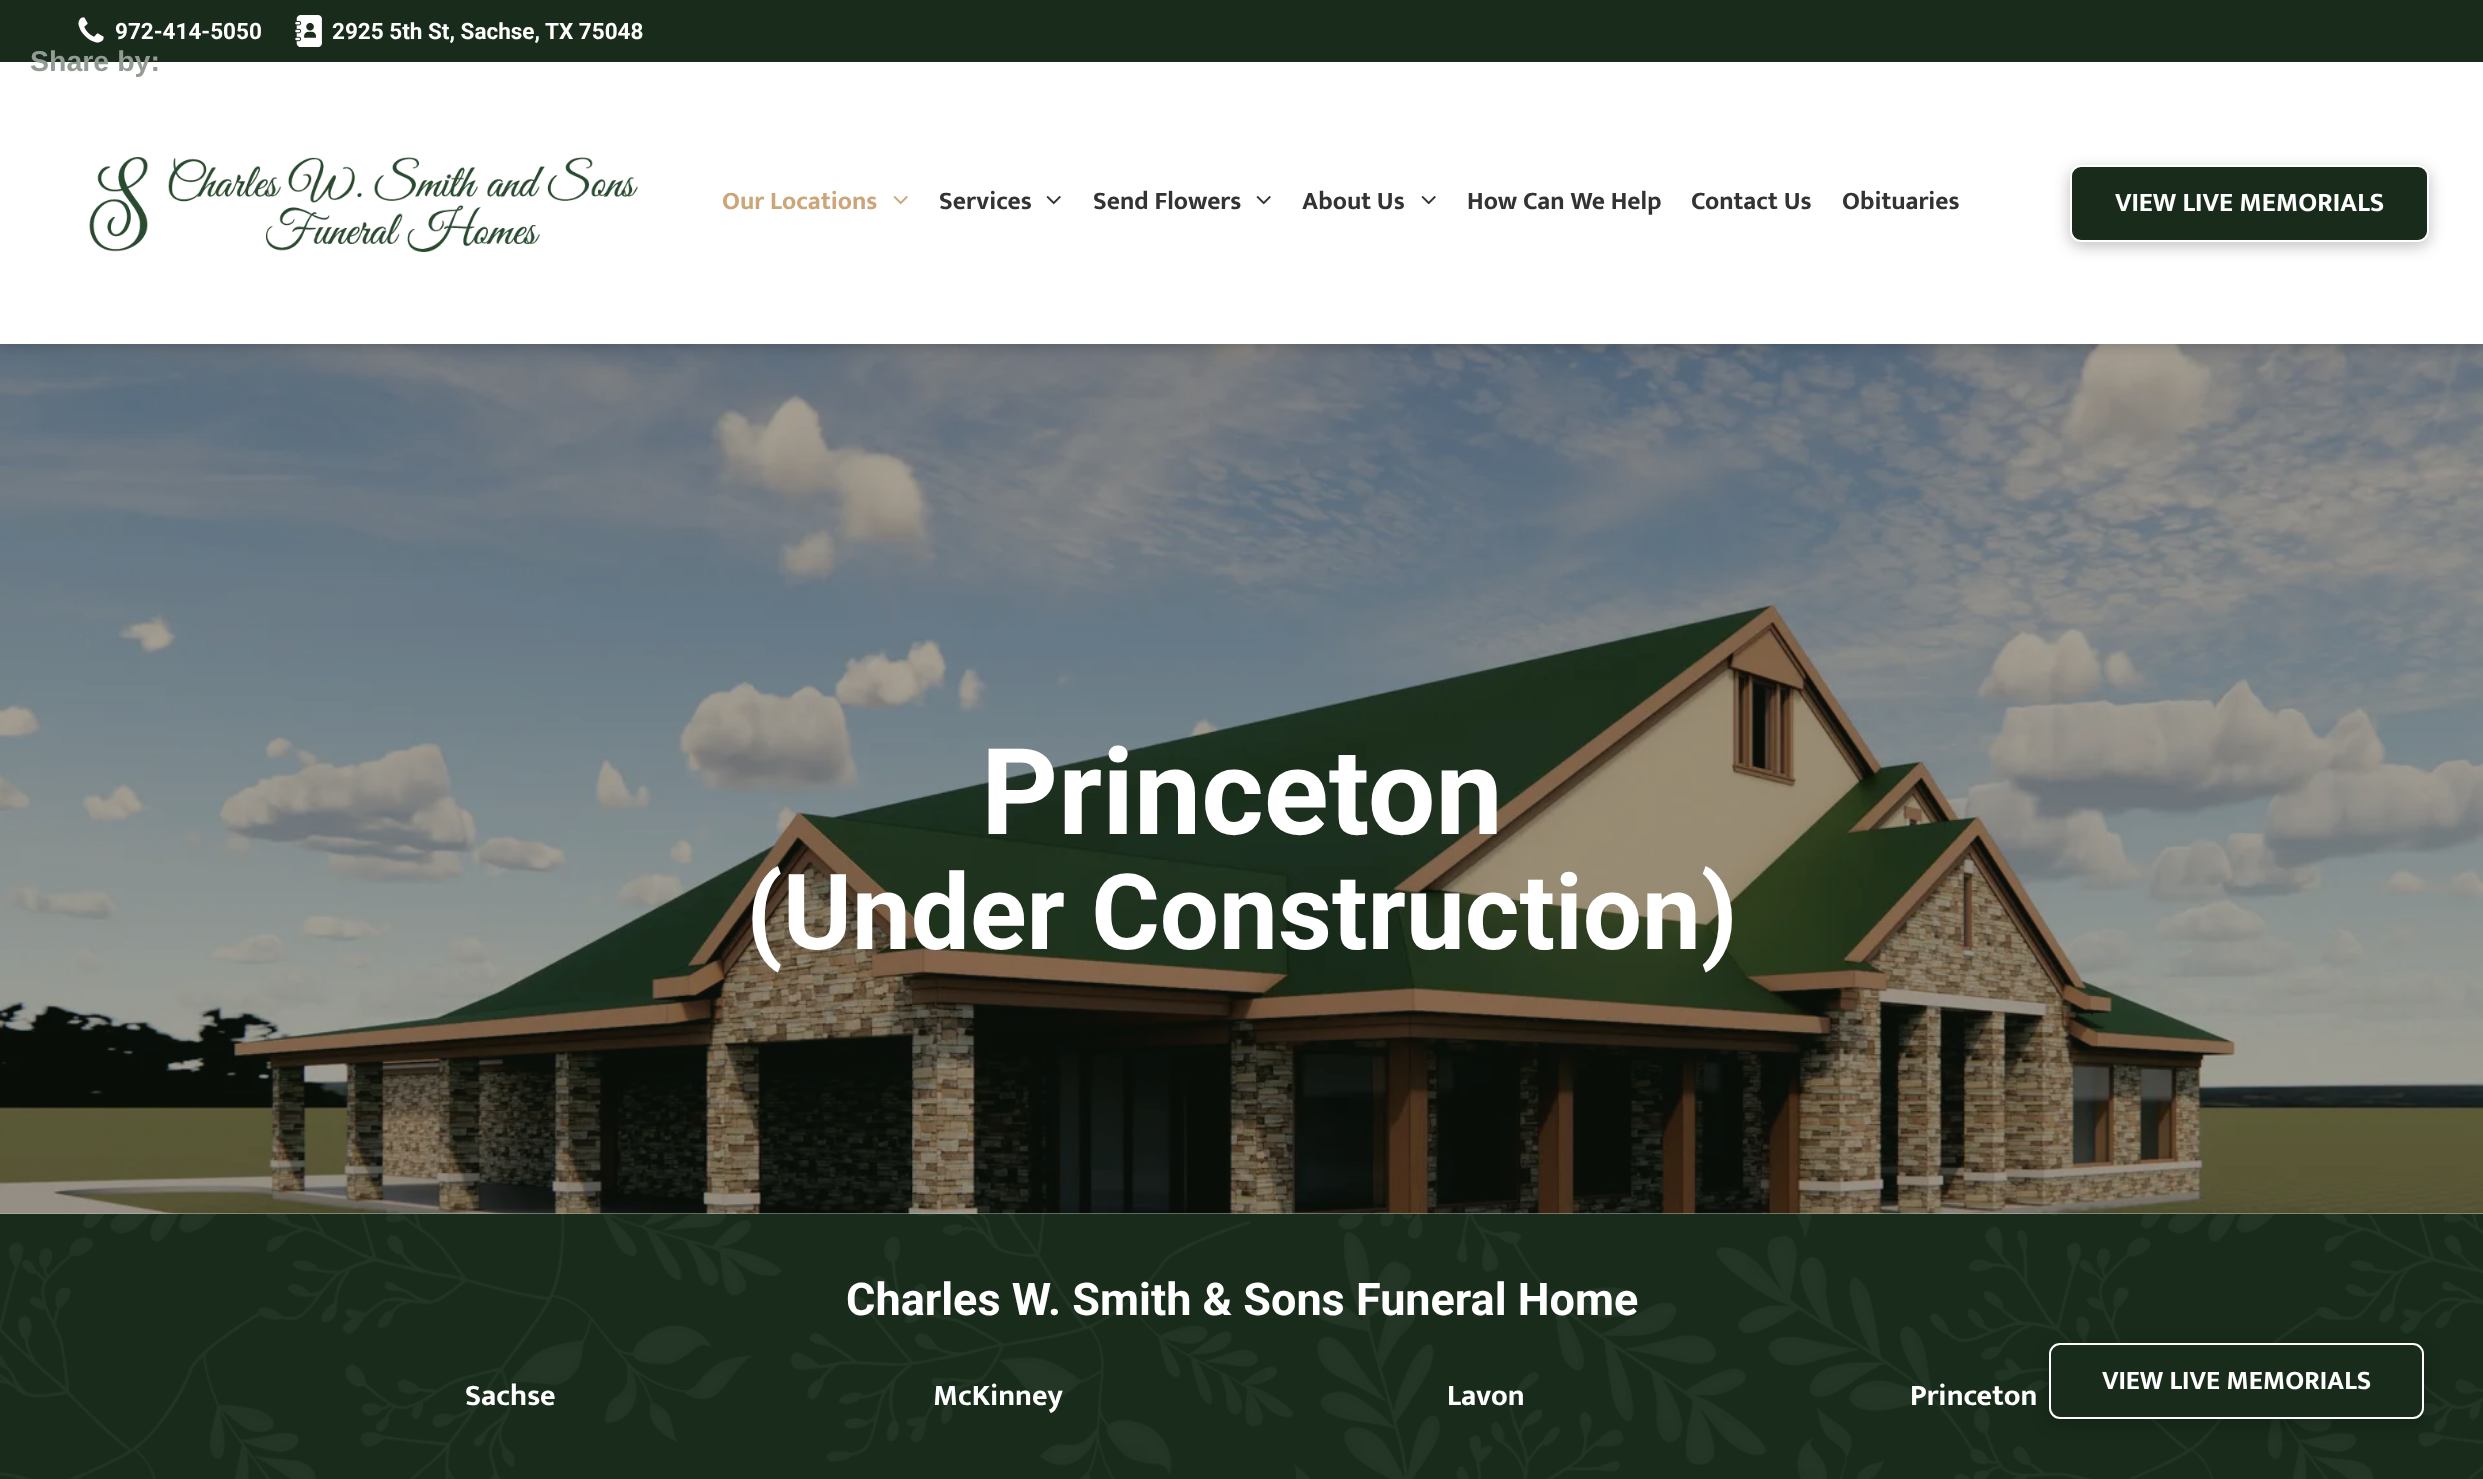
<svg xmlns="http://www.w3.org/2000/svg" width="2483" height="1479">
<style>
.a{font:bold 28.5px Liberation Sans;fill:#939c94}
.b{font:bold 22.5px Roboto;fill:#fff}
.c{font:bold 25.5px Mukta;fill:#cca579}
.d{font:bold 25.5px Mukta;fill:#333}
.e{font:bold 27px Mukta;fill:#fff}
.f{font:bold 120px Roboto;fill:#fff}
.g{font:bold 105px Roboto;fill:#fff}
.h{font:bold 45px Roboto;fill:#fff}
.i{font:bold 30px Mukta;fill:#fff}
</style>
<rect width="100%" height="100%" fill="#bac0bb"/>
<image href="6.png" x="0" y="344" width="2483" height="870"/>
<path fill="#00000040" filter="blur(8px)" d="M0 0h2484v344H0z"/>
<path fill="#fff" d="M0 62h2483v282H0z"/>
<path fill="#192c1b" d="M0 0h2483v62H0z"/>
<image href="1.png" x="78" y="17" width="26" height="26"/>
<image href="2.png" x="295" y="15" width="27" height="32"/>
<image href="3.png" x="89" y="157" width="549" height="95"/>
<image href="4.png" x="893" y="196" width="15" height="9"/>
<image href="5.png" x="1046" y="196" width="15" height="9"/>
<image href="5.png" x="1256" y="196" width="15" height="9"/>
<image href="5.png" x="1421" y="196" width="15" height="9"/>
<rect fill="#00000040" filter="blur(8px)" x="2070" y="170" width="359" height="76" rx="11"/>
<rect fill="#192c1b" stroke="#fff" stroke-width="2" x="2071" y="166" width="357" height="75" rx="10"/>
<path fill="#192c1b" d="M0 1214h2483v265H0z"/>
<image href="7.png" x="0" y="1214" width="2483" height="265"/>
<rect fill="#00000040" filter="blur(8px)" x="2049" y="1347" width="375" height="77" rx="11"/>
<rect fill="#192c1b" stroke="#fff" stroke-width="2" x="2050" y="1344" width="373" height="74" rx="10"/>
<text class="a" x="30" y="71">Share by:</text>
<text class="b" x="115" y="39">972-414-5050</text>
<text class="b" x="332" y="39">2925 5th St, Sachse, TX 75048</text>
<text class="c" x="722" y="209">Our Locations</text>
<text class="d" x="939" y="209">Services</text>
<text class="d" x="1093" y="209">Send Flowers</text>
<text class="d" x="1302" y="209">About Us</text>
<text class="d" x="1467" y="209">How Can We Help</text>
<text class="d" x="1691" y="209">Contact Us</text>
<text class="d" x="1842" y="209">Obituaries</text>
<text class="e" x="2115" y="211">VIEW LIVE MEMORIALS</text>
<text class="f" x="981" y="834">Princeton</text>
<text class="g" x="746" y="949">(Under Construction)</text>
<text class="h" x="846" y="1315">Charles W. Smith &amp; Sons Funeral Home</text>
<text class="i" x="465" y="1405">Sachse</text>
<text class="i" x="933" y="1405">McKinney</text>
<text class="i" x="1447" y="1405">Lavon</text>
<text class="i" x="1910" y="1405">Princeton</text>
<text class="e" x="2102" y="1389">VIEW LIVE MEMORIALS</text>
</svg>
